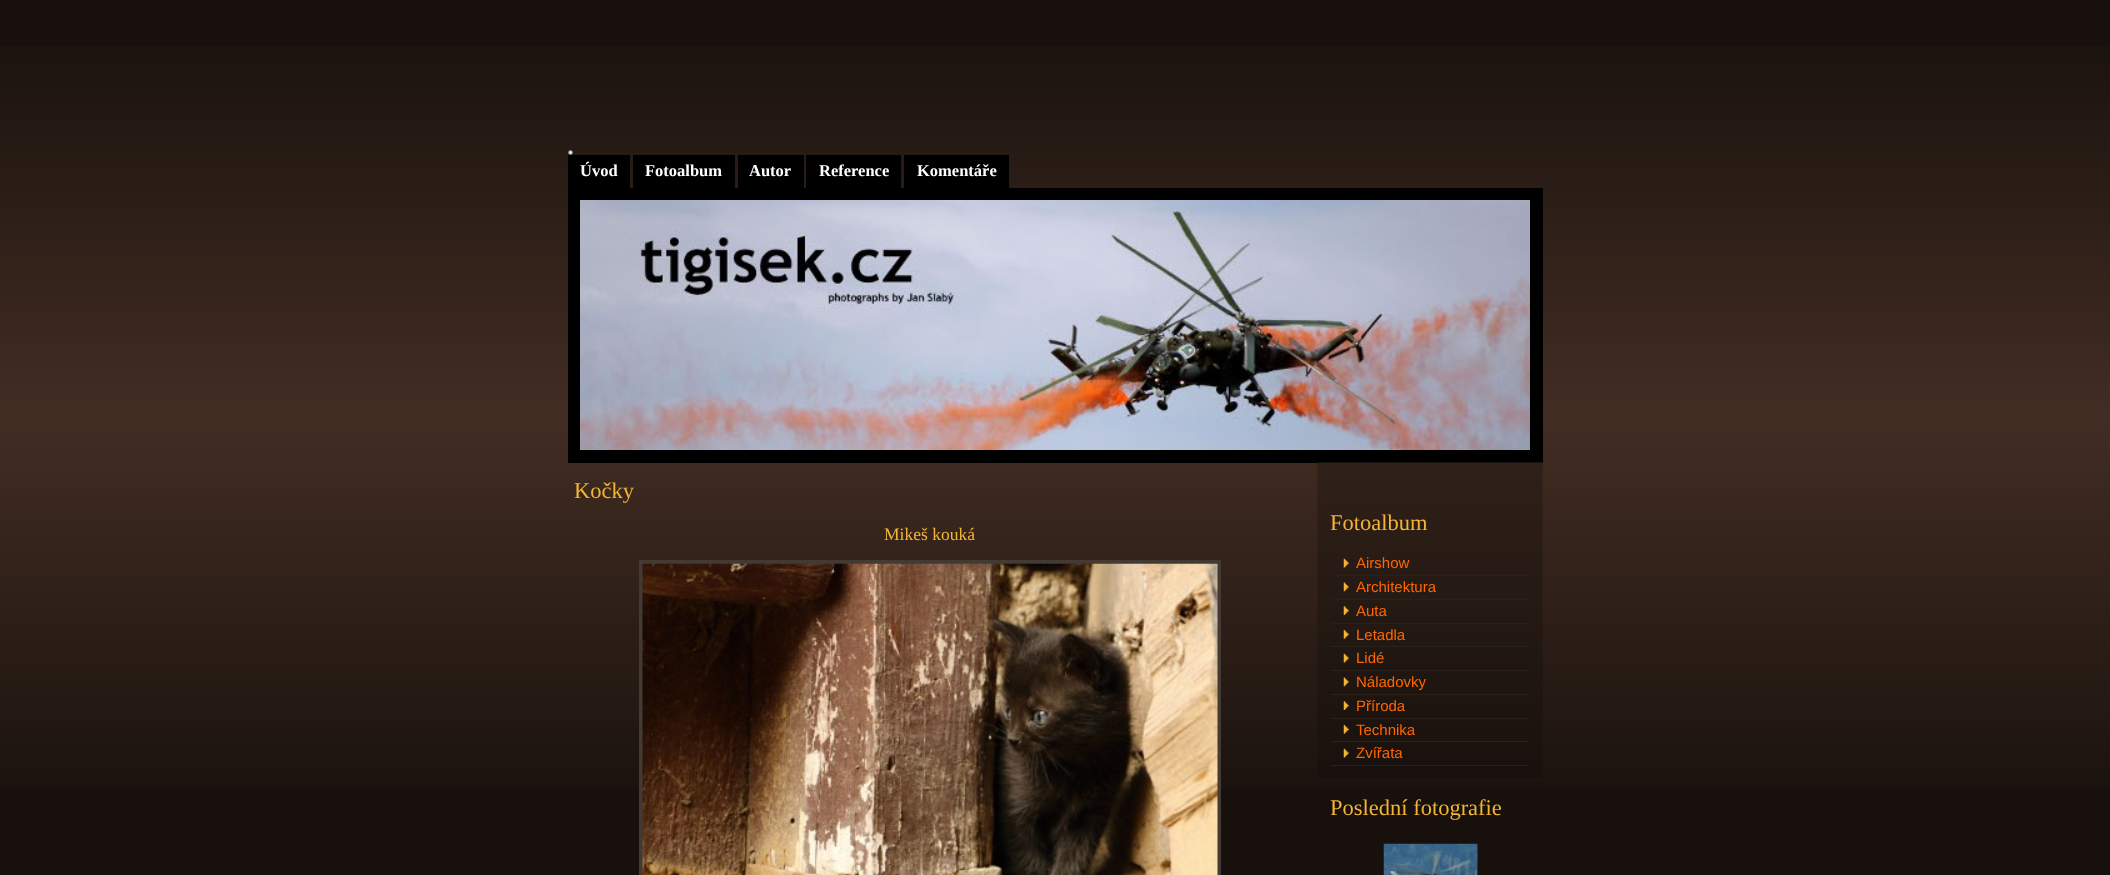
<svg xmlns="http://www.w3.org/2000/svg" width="2110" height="875">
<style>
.a{font:bold 16.5px Liberation Serif;fill:#fff}
.b{font:22.5px Liberation Serif;fill:#f3b533}
.c{font:17.5px Liberation Serif;fill:#f3b533}
.d{font:15px Liberation Sans;fill:#f60}
</style>
<rect width="100%" height="100%" fill="#17100c"/>
<image href="1.png" x="0" y="46" width="2110" height="742"/>
<circle fill="#efefef" stroke="#767676" cx="570.5" cy="152.5" r="2"/>
<path fill="#000" d="M568 155h62v33H568z"/>
<path fill="#000" d="M633 155h102v33H633z"/>
<path fill="#000" d="M738 155h66v33H738z"/>
<path fill="#000" d="M806 155h95v33H806z"/>
<path fill="#000" d="M904 155h105v33H904z"/>
<path fill="#000" d="M568 188h975v275H568z"/>
<image href="2.png" x="580" y="200" width="950" height="250"/>
<path fill="none" stroke="#433a33" stroke-width="4" d="M641 562h578v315H641z"/>
<image href="3.png" x="642" y="563" width="576" height="312"/>
<image href="4.png" x="1317" y="462" width="226" height="316"/>
<image href="5.png" x="1343" y="558" width="6" height="10"/>
<path fill="#2c201a" d="M1331 575h198v1H1331z"/>
<image href="6.png" x="1343" y="582" width="6" height="10"/>
<path fill="#2c201a" d="M1331 599h198v1H1331z"/>
<image href="7.png" x="1343" y="606" width="6" height="9"/>
<path fill="#2c201a" d="M1331 623h198v1H1331z"/>
<image href="8.png" x="1343" y="630" width="6" height="9"/>
<path fill="#2c201a" d="M1331 646h198v1H1331z"/>
<image href="9.png" x="1343" y="653" width="6" height="10"/>
<path fill="#2c201a" d="M1331 670h198v1H1331z"/>
<image href="10.png" x="1343" y="677" width="6" height="10"/>
<path fill="#2c201a" d="M1331 694h198v1H1331z"/>
<image href="11.png" x="1343" y="701" width="6" height="9"/>
<path fill="#2c201a" d="M1331 718h198v1H1331z"/>
<image href="12.png" x="1343" y="725" width="6" height="9"/>
<path fill="#2c201a" d="M1331 741h198v1H1331z"/>
<image href="13.png" x="1343" y="748" width="6" height="10"/>
<path fill="#2c201a" d="M1331 765h198v1H1331z"/>
<image href="14.png" x="1383" y="843" width="95" height="32"/>
<text class="a" x="580" y="176">Úvod</text>
<text class="a" x="645" y="176">Fotoalbum</text>
<text class="a" x="749" y="176">Autor</text>
<text class="a" x="819" y="176">Reference</text>
<text class="a" x="917" y="176">Komentáře</text>
<text class="b" x="574" y="498">Kočky</text>
<text class="c" x="884" y="540">Mikeš kouká</text>
<text class="b" x="1330" y="530">Fotoalbum</text>
<text class="d" x="1356" y="568">Airshow</text>
<text class="d" x="1356" y="592">Architektura</text>
<text class="d" x="1356" y="616">Auta</text>
<text class="d" x="1356" y="640">Letadla</text>
<text class="d" x="1356" y="663">Lidé</text>
<text class="d" x="1356" y="687">Náladovky</text>
<text class="d" x="1356" y="711">Příroda</text>
<text class="d" x="1356" y="735">Technika</text>
<text class="d" x="1356" y="758">Zvířata</text>
<text class="b" x="1330" y="815">Poslední fotografie</text>
</svg>
